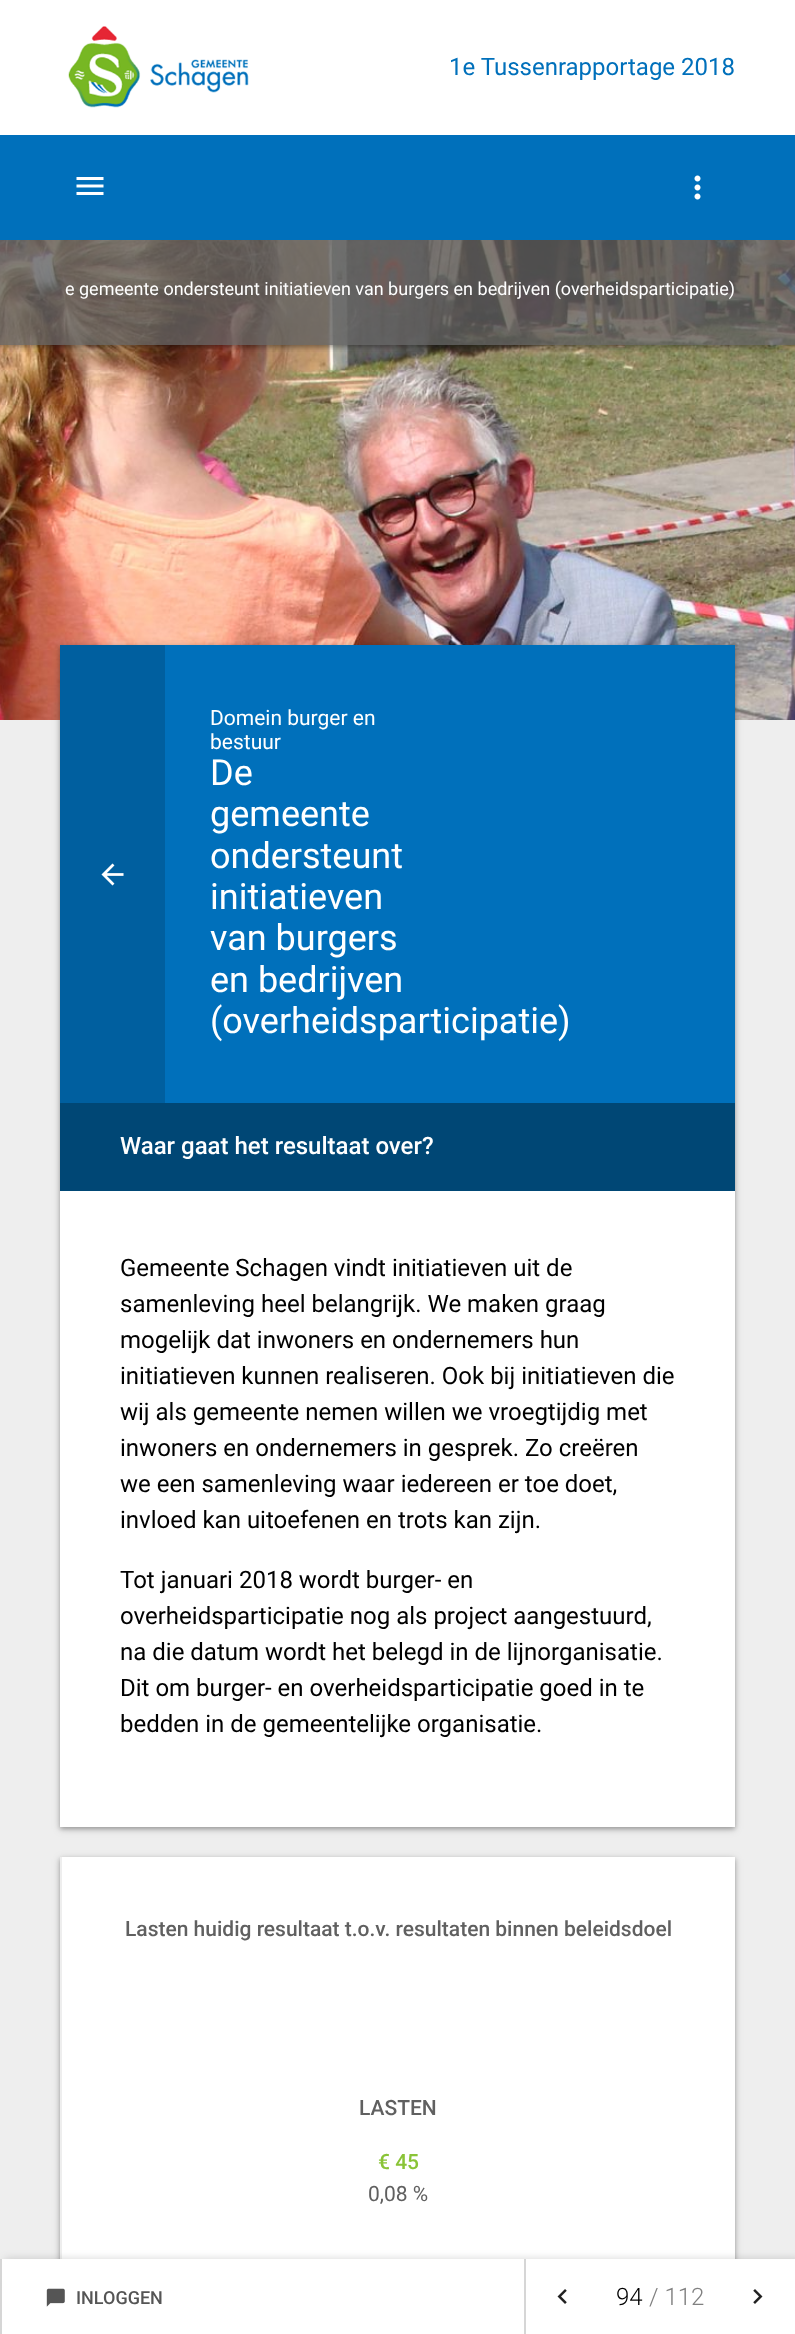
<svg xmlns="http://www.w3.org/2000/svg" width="795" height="2334">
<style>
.a{font:24px Roboto;fill:#0070bb}
.b{font:18px Roboto;fill:#fff}
.c{font:21px Roboto;fill:#fff}
.d{font:36px Roboto;fill:#fff}
.e{font:500 24px Roboto;fill:#fff}
.f{font:24px Roboto;fill:#000}
.g{font:500 21px Roboto;fill:#606060}
.h{font:500 21px Roboto;fill:#8ac437}
.i{font:21px Roboto;fill:#606060}
.j{font:500 18px Roboto;fill:#555}
.k{font:300 24px Roboto;fill:#000}
.l{font:300 24px Roboto;fill:#808080}
</style>
<defs>
<clipPath id="clip1"><path d="M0 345h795v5H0z"/></clipPath>
<clipPath id="clip2"><path d="M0 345h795v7H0z"/></clipPath>
</defs>
<rect width="100%" height="100%" fill="#eee"/>
<image href="4.png" x="0" y="240" width="795" height="480"/>
<g clip-path="url(#clip1)">
<path fill="#00000042" filter="blur(2px)" d="M0 2h795v345H0z"/>
</g>
<g clip-path="url(#clip2)">
<path fill="#00000029" filter="blur(4px)" d="M0 2h795v345H0z"/>
</g>
<path fill="#fff" d="M0 0h795v135H0z"/>
<image href="1.png" x="68" y="26" width="181" height="82"/>
<path fill="#0070bb" d="M0 135h795v105H0z"/>
<image href="2.png" x="76" y="177" width="28" height="18"/>
<image href="3.png" x="694" y="175" width="7" height="25"/>
<path fill="#606060cc" d="M0 240h795v105H0z"/>
<path fill="#00000042" filter="blur(2px)" d="M60 647h675v1182H60z"/>
<path fill="#00000029" filter="blur(4px)" d="M60 647h675v1182H60z"/>
<path fill="#fff" d="M60 1191h675v636H60z"/>
<path fill="#0070bb" d="M165 645h570v458H165z"/>
<path fill="#005f9f" d="M60 645h105v458H60z"/>
<image href="5.png" x="101" y="863" width="23" height="23"/>
<path fill="#004775" d="M60 1103h675v88H60z"/>
<path fill="#00000042" filter="blur(2px)" d="M60 1859h675v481H60z"/>
<path fill="#00000029" filter="blur(4px)" d="M60 1859h675v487H60z"/>
<path fill="#fff" d="M62 1857h673v402H62z"/>
<path fill="#eee" d="M60 1857h2v402H60z"/>
<path fill="#00000029" filter="blur(4.5px)" d="M5 2259h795v75H5z"/>
<path fill="#fff" d="M2 2259h793v75H2z"/>
<path fill="#d6d6d6" d="M524 2259h2v75H524z"/>
<path fill="#d6d6d6" d="M0 2259h2v75H0z"/>
<image href="6.png" x="46" y="2288" width="19" height="19"/>
<image href="7.png" x="557" y="2289" width="10" height="15"/>
<image href="8.png" x="753" y="2289" width="10" height="15"/>
<text class="a" x="449" y="75">1e Tussenrapportage 2018</text>
<text class="b" x="65" y="295">e gemeente ondersteunt initiatieven van burgers en bedrijven (overheidsparticipatie)</text>
<text class="c" x="210" y="725">Domein burger en</text>
<text class="c" x="210" y="749">bestuur</text>
<text class="d" x="210" y="785">De</text>
<text class="d" x="210" y="826">gemeente</text>
<text class="d" x="210" y="868">ondersteunt</text>
<text class="d" x="210" y="909">initiatieven</text>
<text class="d" x="210" y="950">van burgers</text>
<text class="d" x="210" y="992">en bedrijven</text>
<text class="d" x="210" y="1033">(overheidsparticipatie)</text>
<text class="e" x="120" y="1154">Waar gaat het resultaat over?</text>
<text class="f" x="120" y="1276">Gemeente Schagen vindt initiatieven uit de</text>
<text class="f" x="120" y="1312">samenleving heel belangrijk. We maken graag</text>
<text class="f" x="120" y="1348">mogelijk dat inwoners en ondernemers hun</text>
<text class="f" x="120" y="1384">initiatieven kunnen realiseren. Ook bij initiatieven die</text>
<text class="f" x="120" y="1420">wij als gemeente nemen willen we vroegtijdig met</text>
<text class="f" x="120" y="1456">inwoners en ondernemers in gesprek. Zo creëren</text>
<text class="f" x="120" y="1492">we een samenleving waar iedereen er toe doet,</text>
<text class="f" x="120" y="1528">invloed kan uitoefenen en trots kan zijn.</text>
<text class="f" x="120" y="1588">Tot januari 2018 wordt burger- en</text>
<text class="f" x="120" y="1624">overheidsparticipatie nog als project aangestuurd,</text>
<text class="f" x="120" y="1660">na die datum wordt het belegd in de lijnorganisatie.</text>
<text class="f" x="120" y="1696">Dit om burger- en overheidsparticipatie goed in te</text>
<text class="f" x="120" y="1732">bedden in de gemeentelijke organisatie.</text>
<text class="g" x="125" y="1936">Lasten huidig resultaat t.o.v. resultaten binnen beleidsdoel</text>
<text class="g" x="359" y="2115">LASTEN</text>
<text class="h" x="378" y="2169">€ 45</text>
<text class="i" x="368" y="2201">0,08 %</text>
<text class="j" x="76" y="2304">INLOGGEN</text>
<text class="k" x="616" y="2305">94</text>
<text class="l" x="649" y="2305">/ 112</text>
</svg>
